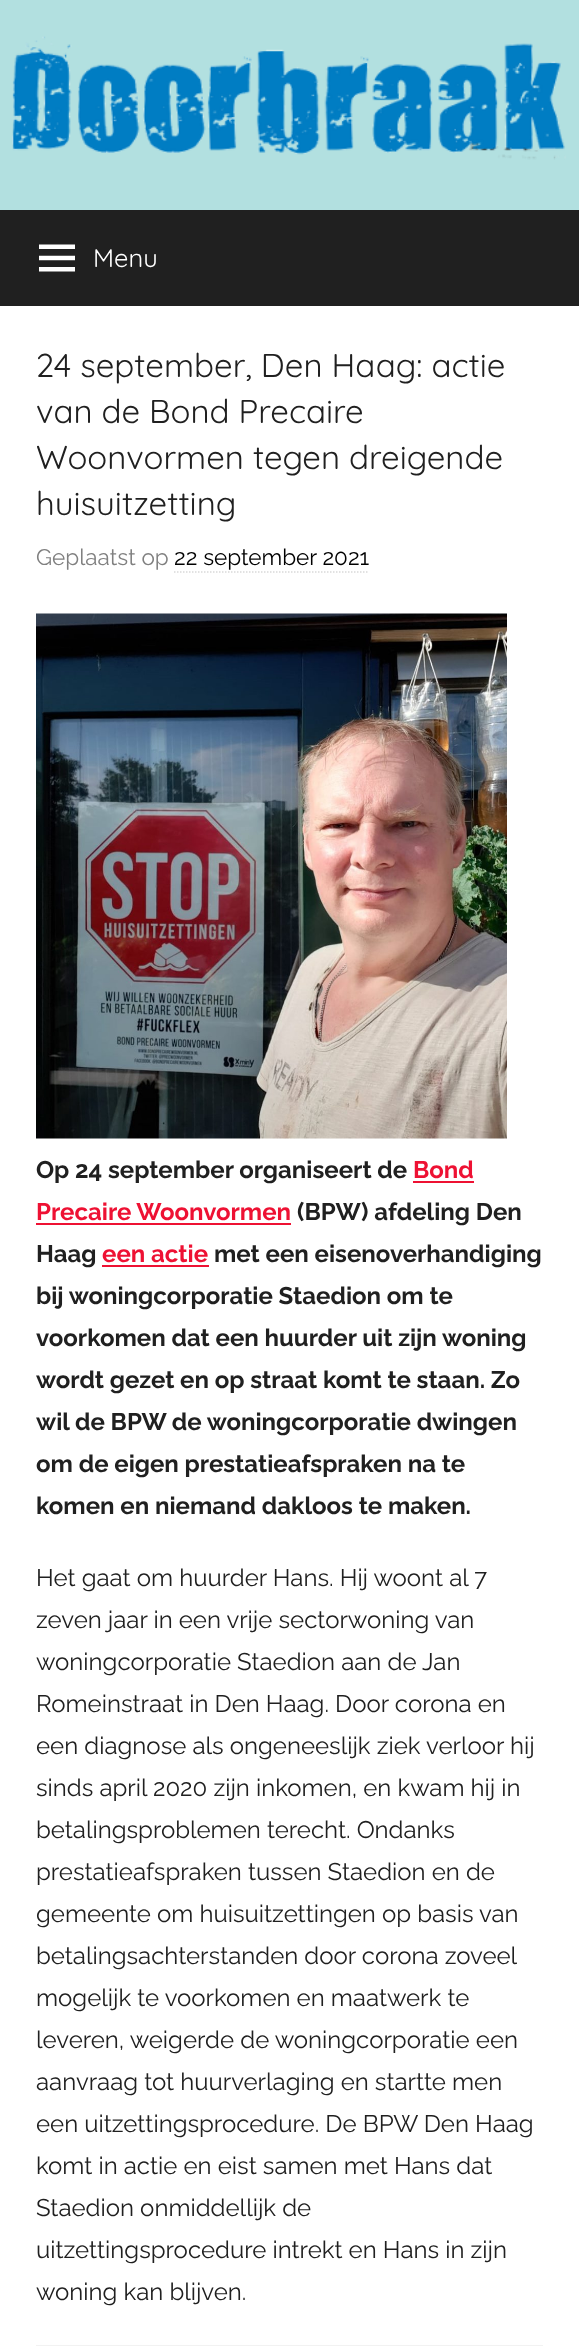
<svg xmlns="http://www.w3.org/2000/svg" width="579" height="2346">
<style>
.a{font:25.5px Quicksand;fill:#fff}
.b{font:33px Quicksand;fill:#202020}
.c{font:22.5px Raleway;fill:#808080}
.d{font:22.5px Raleway;fill:#000}
.e{font:bold 24px Raleway;fill:#202020}
.f{font:bold 24px Raleway;fill:#e13}
.g{font:24px Raleway;fill:#202020}
</style>
<rect width="100%" height="100%" fill="#b2e0e0"/>
<image href="1.png" x="12" y="36" width="554" height="124"/>
<path fill="#202020" d="M0 210h579v96H0z"/>
<image href="2.png" x="39" y="244" width="36" height="28"/>
<path fill="#fff" d="M0 306h579v2040H0z"/>
<path fill="none" stroke="#d9d9d9" stroke-width="1.5" stroke-dasharray="1.5 1.5" d="M174 572h195"/>
<image href="3.png" x="36" y="613" width="471" height="526"/>
<path fill="#e13" d="M413 1181h61v2H413z"/>
<path fill="#e13" d="M36 1223h255v2H36z"/>
<path fill="#e13" d="M102 1265h107v2H102z"/>
<path fill="#f2f2f2" d="M36 2345h507v1H36z"/>
<text class="a" x="93" y="267">Menu</text>
<text class="b" x="36" y="377">24 september, Den Haag: actie</text>
<text class="b" x="36" y="423">van de Bond Precaire</text>
<text class="b" x="36" y="469">Woonvormen tegen dreigende</text>
<text class="b" x="36" y="515">huisuitzetting</text>
<text class="c" x="36" y="565">Geplaatst op</text>
<text class="d" x="174" y="565">22 september 2021</text>
<text class="e" x="36" y="1178">Op 24 september organiseert de</text>
<text class="f" x="413" y="1178">Bond</text>
<text class="f" x="36" y="1220">Precaire Woonvormen</text>
<text class="e" x="297" y="1220">(BPW) afdeling Den</text>
<text class="e" x="36" y="1262">Haag</text>
<text class="f" x="102" y="1262">een actie</text>
<text class="e" x="214" y="1262">met een eisenoverhandiging</text>
<text class="e" x="36" y="1304">bij woningcorporatie Staedion om te</text>
<text class="e" x="36" y="1346">voorkomen dat een huurder uit zijn woning</text>
<text class="e" x="36" y="1388">wordt gezet en op straat komt te staan. Zo</text>
<text class="e" x="36" y="1430">wil de BPW de woningcorporatie dwingen</text>
<text class="e" x="36" y="1472">om de eigen prestatieafspraken na te</text>
<text class="e" x="36" y="1514">komen en niemand dakloos te maken.</text>
<text class="g" x="36" y="1586">Het gaat om huurder Hans. Hij woont al 7</text>
<text class="g" x="36" y="1628">zeven jaar in een vrije sectorwoning van</text>
<text class="g" x="36" y="1670">woningcorporatie Staedion aan de Jan</text>
<text class="g" x="36" y="1712">Romeinstraat in Den Haag. Door corona en</text>
<text class="g" x="36" y="1754">een diagnose als ongeneeslijk ziek verloor hij</text>
<text class="g" x="36" y="1796">sinds april 2020 zijn inkomen, en kwam hij in</text>
<text class="g" x="36" y="1838">betalingsproblemen terecht. Ondanks</text>
<text class="g" x="36" y="1880">prestatieafspraken tussen Staedion en de</text>
<text class="g" x="36" y="1922">gemeente om huisuitzettingen op basis van</text>
<text class="g" x="36" y="1964">betalingsachterstanden door corona zoveel</text>
<text class="g" x="36" y="2006">mogelijk te voorkomen en maatwerk te</text>
<text class="g" x="36" y="2048">leveren, weigerde de woningcorporatie een</text>
<text class="g" x="36" y="2090">aanvraag tot huurverlaging en startte men</text>
<text class="g" x="36" y="2132">een uitzettingsprocedure. De BPW Den Haag</text>
<text class="g" x="36" y="2174">komt in actie en eist samen met Hans dat</text>
<text class="g" x="36" y="2216">Staedion onmiddellijk de</text>
<text class="g" x="36" y="2258">uitzettingsprocedure intrekt en Hans in zijn</text>
<text class="g" x="36" y="2300">woning kan blijven.</text>
</svg>
